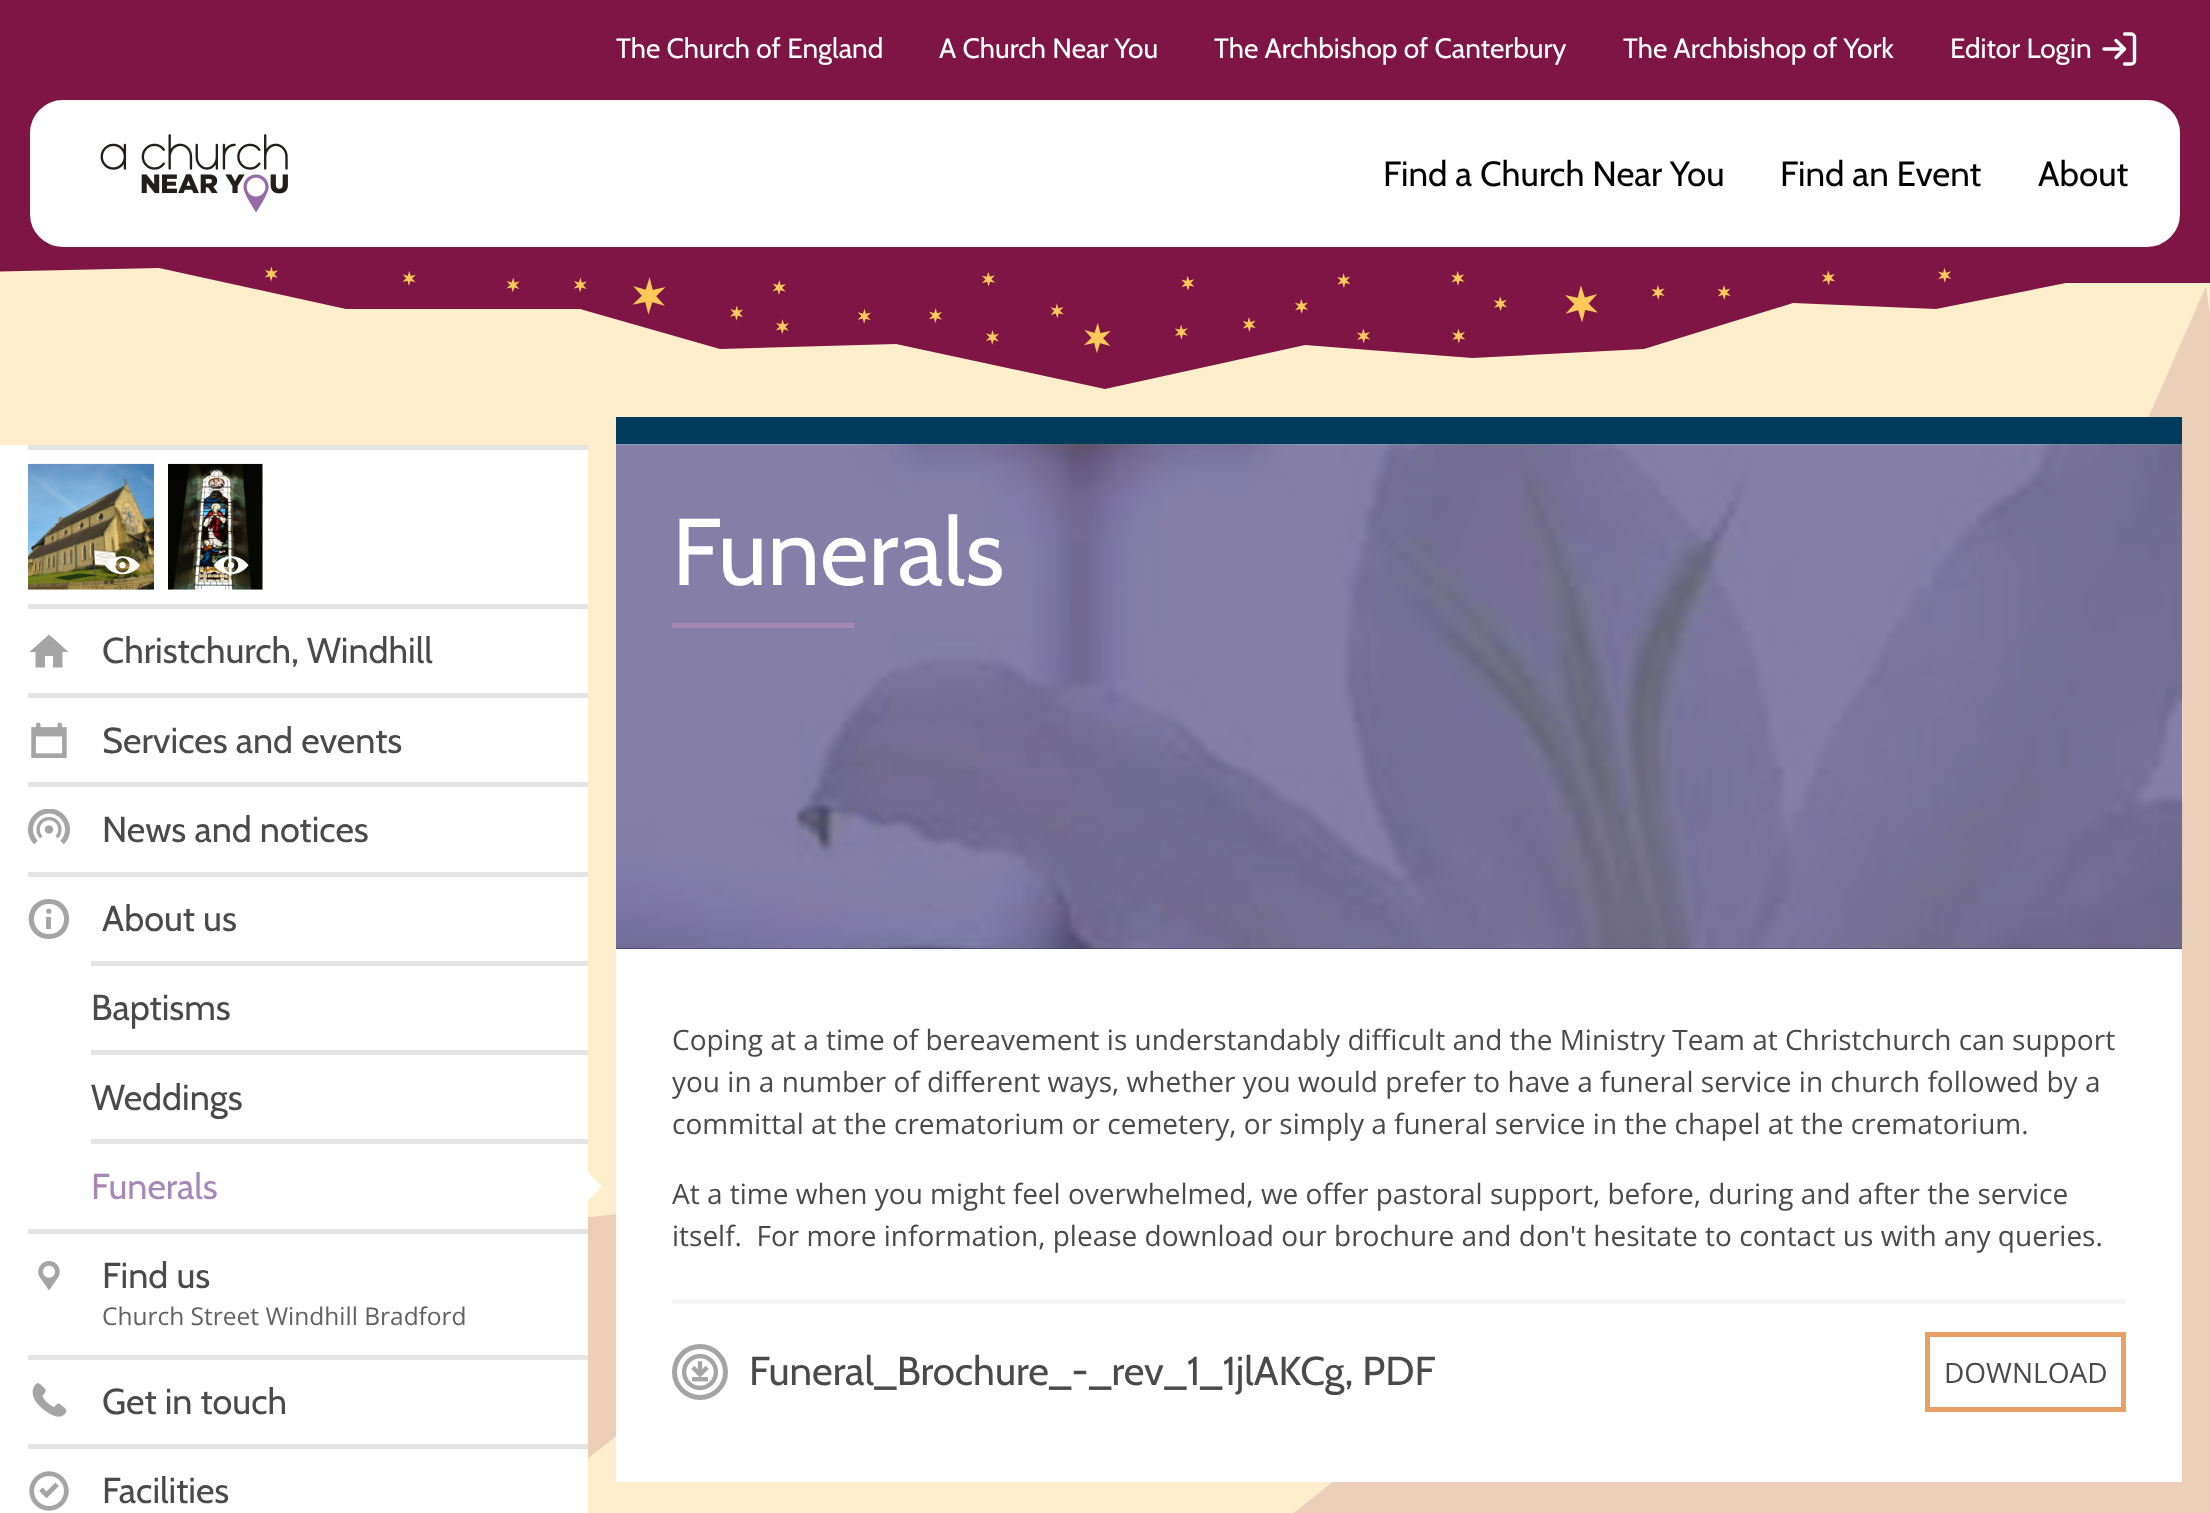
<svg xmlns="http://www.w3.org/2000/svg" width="2210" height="1513">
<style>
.a{font:28px Cabin;fill:#fff}
.b{font:35px Cabin;fill:#000}
.c{font:36px Cabin;fill:#4a4a4a}
.d{font:36px Cabin;fill:#a688b7}
.e{font:24.5px Open Sans;fill:#616161}
.f{font:94.5px Cabin;fill:#fff}
.g{font:28px Open Sans;fill:#4a4a4a}
.h{font:40.25px Cabin;fill:#4a4a4a}
</style>
<rect width="100%" height="100%" fill="#fec"/>
<path fill="#7e1544" d="M0 0h2210v226H0z"/>
<path fill="none" stroke="#fff" stroke-width="3.4" stroke-linecap="round" stroke-linejoin="round" d="M2124.5 34h6.5c2 0 3.5 1.5 3.5 3v24c0 1.5-1.5 3-3.5 3h-6.5m-8.5-6.5l8.5-8.5l-8.5-8.5m8.5 8.5h-20.5"/>
<path fill="#eccfb9" d="M1948 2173l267-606l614 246l-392-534l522-409l-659 72l-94-656l-266 607l-615-247l392 535l-522 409l659-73z"/>
<path fill="#7e1544" d="M159 268l187 41h234l140 40l176-5l209 45l200-44l167 13l172-9l149-46l143 6l130-26h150l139-57h-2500l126 46z"/>
<rect fill="#fff" stroke="#7e1544" stroke-width="2" x="29" y="99" width="2152" height="149" rx="34"/>
<image href="1.png" x="100" y="134" width="188" height="79"/>
<image href="2.png" x="264" y="266" width="1688" height="87"/>
<path fill="#ecceb8" d="M-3 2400l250-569l576 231l-367-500l489-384l-618 68l-88-615l-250 569l-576-232l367 501l-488 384l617-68z"/>
<path fill="#fff" d="M0 445h588v1068H0z"/>
<path fill="#e4e4e4" d="M28 445h560v5H28z"/>
<path fill="#e4e4e4" d="M28 604h560v5H28z"/>
<image href="3.png" x="28" y="463" width="126" height="127"/>
<image href="4.png" x="105" y="556" width="35" height="19"/>
<image href="5.png" x="168" y="463" width="95" height="127"/>
<image href="6.png" x="214" y="556" width="35" height="19"/>
<path fill="#a5a5a5" d="M45 667.5h-9.5v-15.5h-6l19.5-17.5l19.5 17.5h-6v15.5h-9.5v-11.5h-8z"/>
<path fill="#e4e4e4" d="M28 693h560v5H28z"/>
<image href="7.png" x="31" y="722" width="36" height="36"/>
<path fill="#e4e4e4" d="M28 782h560v5H28z"/>
<image href="8.png" x="28" y="809" width="42" height="36"/>
<path fill="#e4e4e4" d="M28 872h560v5H28z"/>
<path fill="#a5a5a5" d="M49 899c-27 0-27 40 0 40c27 0 27-40 0-40zm0 35c-20 0-20-30 0-30c20 0 20 30 0 30z"/>
<path fill="#a5a5a5" d="M46 917h5v12H46z"/>
<circle fill="#a5a5a5" cx="48.8" cy="911.2" r="2.6"/>
<path fill="#e4e4e4" d="M91 961h497v5H91z"/>
<path fill="#e4e4e4" d="M91 1050h497v5H91z"/>
<path fill="#e4e4e4" d="M91 1139h497v5H91z"/>
<path fill="#fff" d="M588 1200.5v-28l14 14z"/>
<path fill="#e4e4e4" d="M28 1229h560v5H28z"/>
<image href="9.png" x="38" y="1261" width="22" height="30"/>
<path fill="#e4e4e4" d="M28 1355h560v5H28z"/>
<image href="10.png" x="32" y="1383" width="35" height="34"/>
<path fill="#e4e4e4" d="M28 1444h560v5H28z"/>
<image href="11.png" x="29" y="1471" width="40" height="40"/>
<path fill="#003a5d" d="M616 417h1566v532H616z"/>
<image href="12.png" x="616" y="444" width="1567" height="505"/>
<path fill="#382e759e" d="M616 445h1566v504H616z"/>
<path fill="#a688b7" d="M672 623h182v5H672z"/>
<path fill="#fff" d="M616 949h1566v533H616z"/>
<path fill="#f5f5f5" d="M672 1299h1454v5H672z"/>
<circle fill="none" stroke="#a5a5a5" stroke-width="5" cx="700" cy="1372" r="25.5"/>
<image href="13.png" x="682" y="1354" width="36" height="36"/>
<path fill="none" stroke="#e8a065" stroke-width="5" d="M1927.5 1334.5h196v75H1927.5z"/>
<text class="a" x="616" y="58">The Church of England</text>
<text class="a" x="939" y="58">A Church Near You</text>
<text class="a" x="1214" y="58">The Archbishop of Canterbury</text>
<text class="a" x="1623" y="58">The Archbishop of York</text>
<text class="a" x="1950" y="58">Editor Login</text>
<text class="b" x="1383" y="186">Find a Church Near You</text>
<text class="b" x="1780" y="186">Find an Event</text>
<text class="b" x="2038" y="186">About</text>
<text class="c" x="102" y="663">Christchurch, Windhill</text>
<text class="c" x="102" y="753">Services and events</text>
<text class="c" x="102" y="842">News and notices</text>
<text class="c" x="102" y="931">About us</text>
<text class="c" x="91" y="1020">Baptisms</text>
<text class="c" x="91" y="1110">Weddings</text>
<text class="d" x="91" y="1199">Funerals</text>
<text class="c" x="102" y="1288">Find us</text>
<text class="e" x="102" y="1325">Church Street Windhill Bradford</text>
<text class="c" x="102" y="1414">Get in touch</text>
<text class="c" x="102" y="1503">Facilities</text>
<text class="f" x="672" y="585">Funerals</text>
<text class="g" x="672" y="1050">Coping at a time of bereavement is understandably difficult and the Ministry Team at Christchurch can support</text>
<text class="g" x="672" y="1092">you in a number of different ways, whether you would prefer to have a funeral service in church followed by a</text>
<text class="g" x="672" y="1134">committal at the crematorium or cemetery, or simply a funeral service in the chapel at the crematorium.</text>
<text class="g" x="672" y="1204">At a time when you might feel overwhelmed, we offer pastoral support, before, during and after the service</text>
<text class="g" xml:space="preserve" x="672" y="1246">itself.  For more information, please download our brochure and don't hesitate to contact us with any queries.</text>
<text class="h" x="749" y="1385">Funeral_Brochure_-_rev_1_1jlAKCg, PDF</text>
<text class="g" x="1944" y="1383">DOWNLOAD</text>
</svg>
